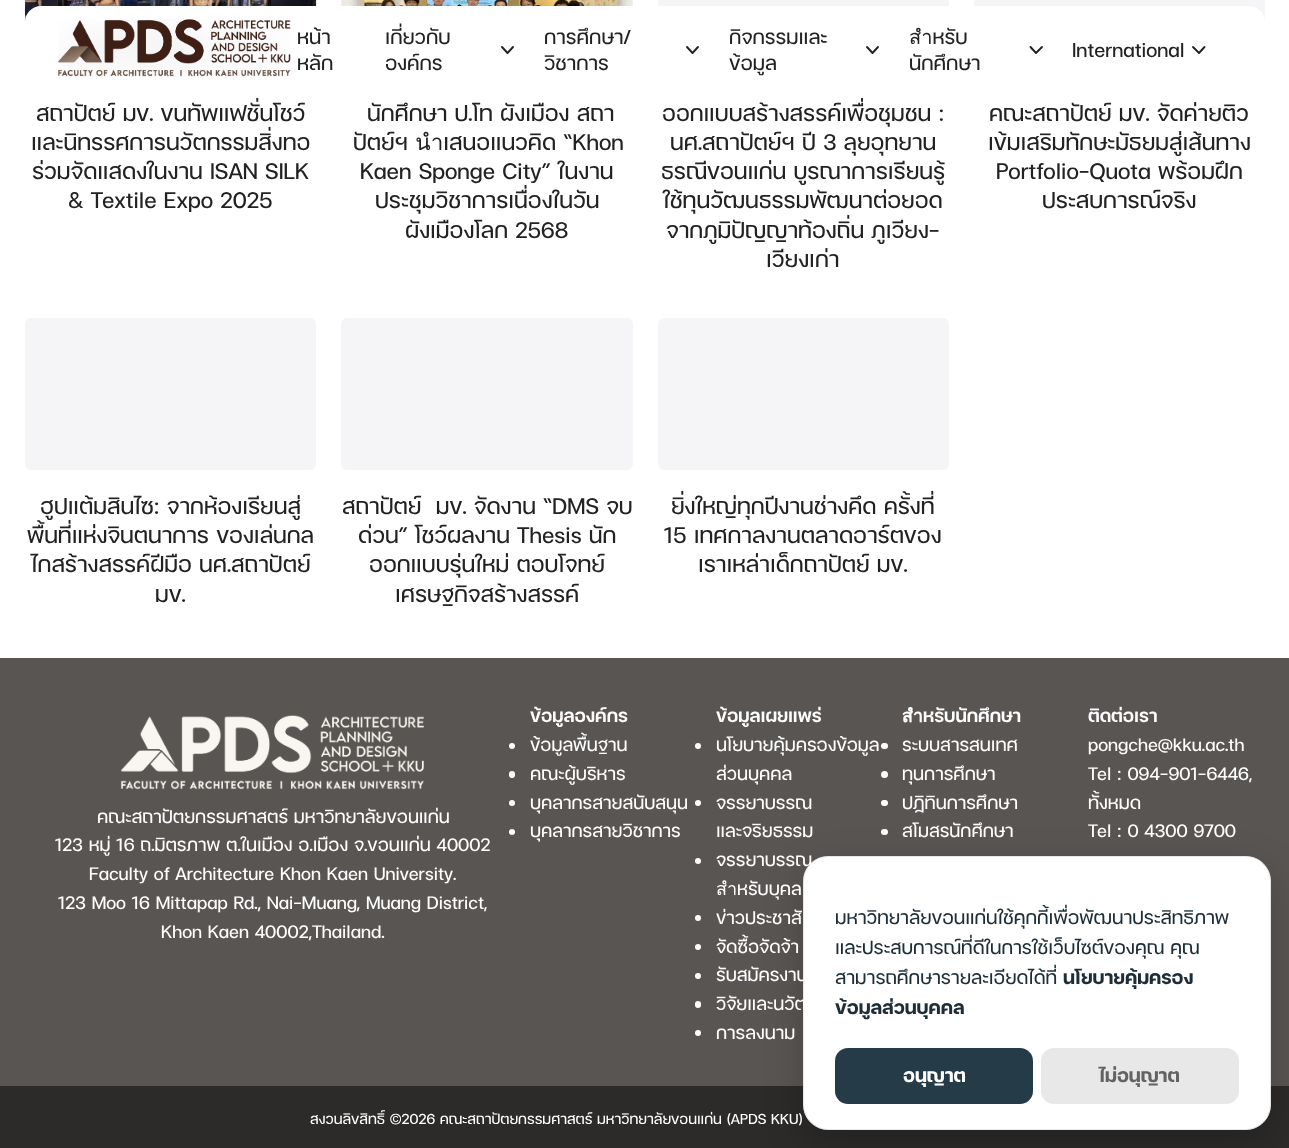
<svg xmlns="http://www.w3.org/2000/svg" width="1289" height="1148">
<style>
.a{font:20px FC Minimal;fill:#222}
.b{font:22.5px FC Minimal;fill:#222}
.c{font:600 18px FC Minimal;fill:#fff}
.d{font:18px FC Minimal;fill:#fff}
.e{font:14.4px FC Minimal;fill:#fff}
.f{font:18.75px FC Minimal;fill:#1d2e38}
.g{font:bold 18.75px FC Minimal;fill:#1d2e38}
.h{font:bold 18.75px FC Minimal;fill:#fff}
.i{font:bold 18.75px FC Minimal;fill:#636363}
</style>
<rect width="100%" height="100%" fill="#fff"/>
<image href="2.png" x="25" y="0" width="292" height="22"/>
<path fill="#f5f5f7" d="M974 0h291v22H974z"/>
<rect fill="#fff" x="25" y="6" width="1240" height="88" rx="16"/>
<image href="1.png" x="58" y="19" width="233" height="58"/>
<path fill="none" stroke="#222" stroke-width="1.9" stroke-linecap="round" stroke-linejoin="round" d="M502 47l5.5 6l5.5-6"/>
<path fill="none" stroke="#222" stroke-width="1.9" stroke-linecap="round" stroke-linejoin="round" d="M687 47l5.5 6l5.5-6"/>
<path fill="none" stroke="#222" stroke-width="1.9" stroke-linecap="round" stroke-linejoin="round" d="M867 47l5.5 6l5.5-6"/>
<path fill="none" stroke="#222" stroke-width="1.9" stroke-linecap="round" stroke-linejoin="round" d="M1030.5 47l5.5 6l6-6"/>
<path fill="none" stroke="#222" stroke-width="1.9" stroke-linecap="round" stroke-linejoin="round" d="M1193 47l6 6l5.5-6"/>
<path fill="#f5f5f7" d="M341 0h292v6H341z"/>
<image href="3.png" x="341" y="0" width="292" height="6"/>
<path fill="#f5f5f7" d="M658 0h291v6H658z"/>
<rect fill="#f5f5f7" x="25" y="318" width="291" height="152" rx="6"/>
<rect fill="#f5f5f7" x="341" y="318" width="292" height="152" rx="6"/>
<rect fill="#f5f5f7" x="658" y="318" width="291" height="152" rx="6"/>
<path fill="#595553" d="M0 658h1289v428H0z"/>
<circle fill="#fff" cx="512" cy="746" r="3"/>
<rect fill="#fff" x="509" y="771" width="6" height="7" rx="3"/>
<circle fill="#fff" cx="512" cy="803" r="3"/>
<circle fill="#fff" cx="512" cy="832" r="3"/>
<circle fill="#fff" cx="698" cy="746" r="3"/>
<circle fill="#fff" cx="698" cy="803" r="3"/>
<circle fill="#fff" cx="698" cy="861" r="3"/>
<circle fill="#fff" cx="698" cy="918" r="3"/>
<circle fill="#fff" cx="698" cy="947" r="3"/>
<circle fill="#fff" cx="698" cy="976" r="3"/>
<rect fill="#fff" x="695" y="1001" width="6" height="7" rx="3"/>
<circle fill="#fff" cx="698" cy="1033" r="3"/>
<rect fill="#fff" x="881" y="743" width="7" height="6" rx="3"/>
<circle fill="#fff" cx="884.5" cy="774.5" r="3.5"/>
<rect fill="#fff" x="881" y="800" width="7" height="6" rx="3"/>
<rect fill="#fff" x="881" y="829" width="7" height="6" rx="3"/>
<image href="4.png" x="120" y="715" width="304" height="75"/>
<path fill="#2c2b29" d="M0 1086h1289v62H0z"/>
<rect fill="#02020333" filter="blur(19px)" x="803" y="869" width="468" height="274" rx="25"/>
<rect fill="#fff" stroke="#e6e6e6" x="803.5" y="856.5" width="467" height="273" rx="24.5"/>
<rect fill="#253b48" x="835" y="1048" width="198" height="56" rx="13"/>
<rect fill="#e8e8e8" x="1041" y="1048" width="198" height="56" rx="13"/>
<text class="a" x="297" y="44">หน้า</text>
<text class="a" x="297" y="70">หลัก</text>
<text class="a" x="385" y="44">เกี่ยวกับ</text>
<text class="a" x="385" y="70">องค์กร</text>
<text class="a" x="544" y="44">การศึกษา/</text>
<text class="a" x="544" y="70">วิชาการ</text>
<text class="a" x="729" y="44">กิจกรรมและ</text>
<text class="a" x="729" y="70">ข้อมูล</text>
<text class="a" x="909" y="44">สำหรับ</text>
<text class="a" x="909" y="70">นักศึกษา</text>
<text class="a" x="1072" y="57">International</text>
<text class="b" x="36" y="121">สถาปัตย์ มข. ขนทัพแฟชั่นโชว์</text>
<text class="b" x="31" y="150">และนิทรรศการนวัตกรรมสิ่งทอ</text>
<text class="b" x="32" y="179">ร่วมจัดแสดงในงาน ISAN SILK</text>
<text class="b" x="68" y="208">&amp; Textile Expo 2025</text>
<text class="b" x="367" y="121">นักศึกษา ป.โท ผังเมือง สถา</text>
<text class="b" x="353" y="150">ปัตย์ฯ นำเสนอแนวคิด “Khon</text>
<text class="b" x="360" y="179">Kaen Sponge City” ในงาน</text>
<text class="b" x="375" y="208">ประชุมวิชาการเนื่องในวัน</text>
<text class="b" x="405" y="238">ผังเมืองโลก 2568</text>
<text class="b" x="662" y="121">ออกแบบสร้างสรรค์เพื่อชุมชน :</text>
<text class="b" x="670" y="150">นศ.สถาปัตย์ฯ ปี 3 ลุยอุทยาน</text>
<text class="b" x="661" y="179">ธรณีขอนแก่น บูรณาการเรียนรู้</text>
<text class="b" x="663" y="208">ใช้ทุนวัฒนธรรมพัฒนาต่อยอด</text>
<text class="b" x="666" y="238">จากภูมิปัญญาท้องถิ่น ภูเวียง-</text>
<text class="b" x="766" y="267">เวียงเก่า</text>
<text class="b" x="989" y="121">คณะสถาปัตย์ มข. จัดค่ายติว</text>
<text class="b" x="988" y="150">เข้มเสริมทักษะมัธยมสู่เส้นทาง</text>
<text class="b" x="996" y="179">Portfolio–Quota พร้อมฝึก</text>
<text class="b" x="1042" y="208">ประสบการณ์จริง</text>
<text class="b" x="40" y="514">ฮูปแต้มสินไซ: จากห้องเรียนสู่</text>
<text class="b" x="27" y="543">พื้นที่แห่งจินตนาการ ของเล่นกล</text>
<text class="b" x="31" y="572">ไกสร้างสรรค์ฝีมือ นศ.สถาปัตย์</text>
<text class="b" x="155" y="602">มข.</text>
<text class="b" xml:space="preserve" x="342" y="514">สถาปัตย์  มข. จัดงาน “DMS จบ</text>
<text class="b" x="358" y="543">ด่วน” โชว์ผลงาน Thesis นัก</text>
<text class="b" x="369" y="572">ออกแบบรุ่นใหม่ ตอบโจทย์</text>
<text class="b" x="395" y="602">เศรษฐกิจสร้างสรรค์</text>
<text class="b" x="671" y="514">ยิ่งใหญ่ทุกปีงานช่างคึด ครั้งที่</text>
<text class="b" x="664" y="543">15 เทศกาลงานตลาดอาร์ตของ</text>
<text class="b" x="698" y="572">เราเหล่าเด็กถาปัตย์ มข.</text>
<text class="c" x="530" y="722">ข้อมูลองค์กร</text>
<text class="d" x="530" y="751">ข้อมูลพื้นฐาน</text>
<text class="d" x="530" y="780">คณะผู้บริหาร</text>
<text class="d" x="530" y="809">บุคลากรสายสนับสนุน</text>
<text class="d" x="530" y="837">บุคลากรสายวิชาการ</text>
<text class="c" x="716" y="722">ข้อมูลเผยแพร่</text>
<text class="d" x="716" y="751">นโยบายคุ้มครองข้อมูล</text>
<text class="d" x="716" y="780">ส่วนบุคคล</text>
<text class="d" x="716" y="809">จรรยาบรรณ</text>
<text class="d" x="716" y="837">และจริยธรรม</text>
<text class="d" x="716" y="866">จรรยาบรรณ</text>
<text class="d" x="716" y="895">สำหรับบุคล</text>
<text class="d" x="716" y="924">ข่าวประชาสั</text>
<text class="d" x="716" y="953">จัดซื้อจัดจ้า</text>
<text class="d" x="716" y="981">รับสมัครงาน</text>
<text class="d" x="716" y="1010">วิจัยและนวัต</text>
<text class="d" x="716" y="1039">การลงนาม</text>
<text class="c" x="902" y="722">สำหรับนักศึกษา</text>
<text class="d" x="902" y="751">ระบบสารสนเทศ</text>
<text class="d" x="902" y="780">ทุนการศึกษา</text>
<text class="d" x="902" y="809">ปฏิทินการศึกษา</text>
<text class="d" x="902" y="837">สโมสรนักศึกษา</text>
<text class="c" x="1088" y="722">ติดต่อเรา</text>
<text class="d" x="1088" y="751">pongche@kku.ac.th</text>
<text class="d" x="1088" y="780">Tel : 094-901-6446,</text>
<text class="d" x="1088" y="809">ทั้งหมด</text>
<text class="d" x="1088" y="837">Tel : 0 4300 9700</text>
<text class="d" x="97" y="823">คณะสถาปัตยกรรมศาสตร์ มหาวิทยาลัยขอนแก่น</text>
<text class="d" x="55" y="851">123 หมู่ 16 ถ.มิตรภาพ ต.ในเมือง อ.เมือง จ.ขอนแก่น 40002</text>
<text class="d" x="89" y="880">Faculty of Architecture Khon Kaen University.</text>
<text class="d" x="58" y="909">123 Moo 16 Mittapap Rd., Nai-Muang, Muang District,</text>
<text class="d" x="161" y="938">Khon Kaen 40002,Thailand.</text>
<text class="e" x="310" y="1124">สงวนลิขสิทธิ์ ©2026 คณะสถาปัตยกรรมศาสตร์ มหาวิทยาลัยขอนแก่น (APDS KKU)</text>
<text class="f" x="835" y="924">มหาวิทยาลัยขอนแก่นใช้คุกกี้เพื่อพัฒนาประสิทธิภาพ</text>
<text class="f" x="835" y="954">และประสบการณ์ที่ดีในการใช้เว็บไซต์ของคุณ คุณ</text>
<text class="f" x="835" y="984">สามารถศึกษารายละเอียดได้ที่</text>
<text class="g" x="1063" y="984">นโยบายคุ้มครอง</text>
<text class="g" x="835" y="1014">ข้อมูลส่วนบุคคล</text>
<text class="h" x="903" y="1082">อนุญาต</text>
<text class="i" x="1099" y="1082">ไม่อนุญาต</text>
</svg>
